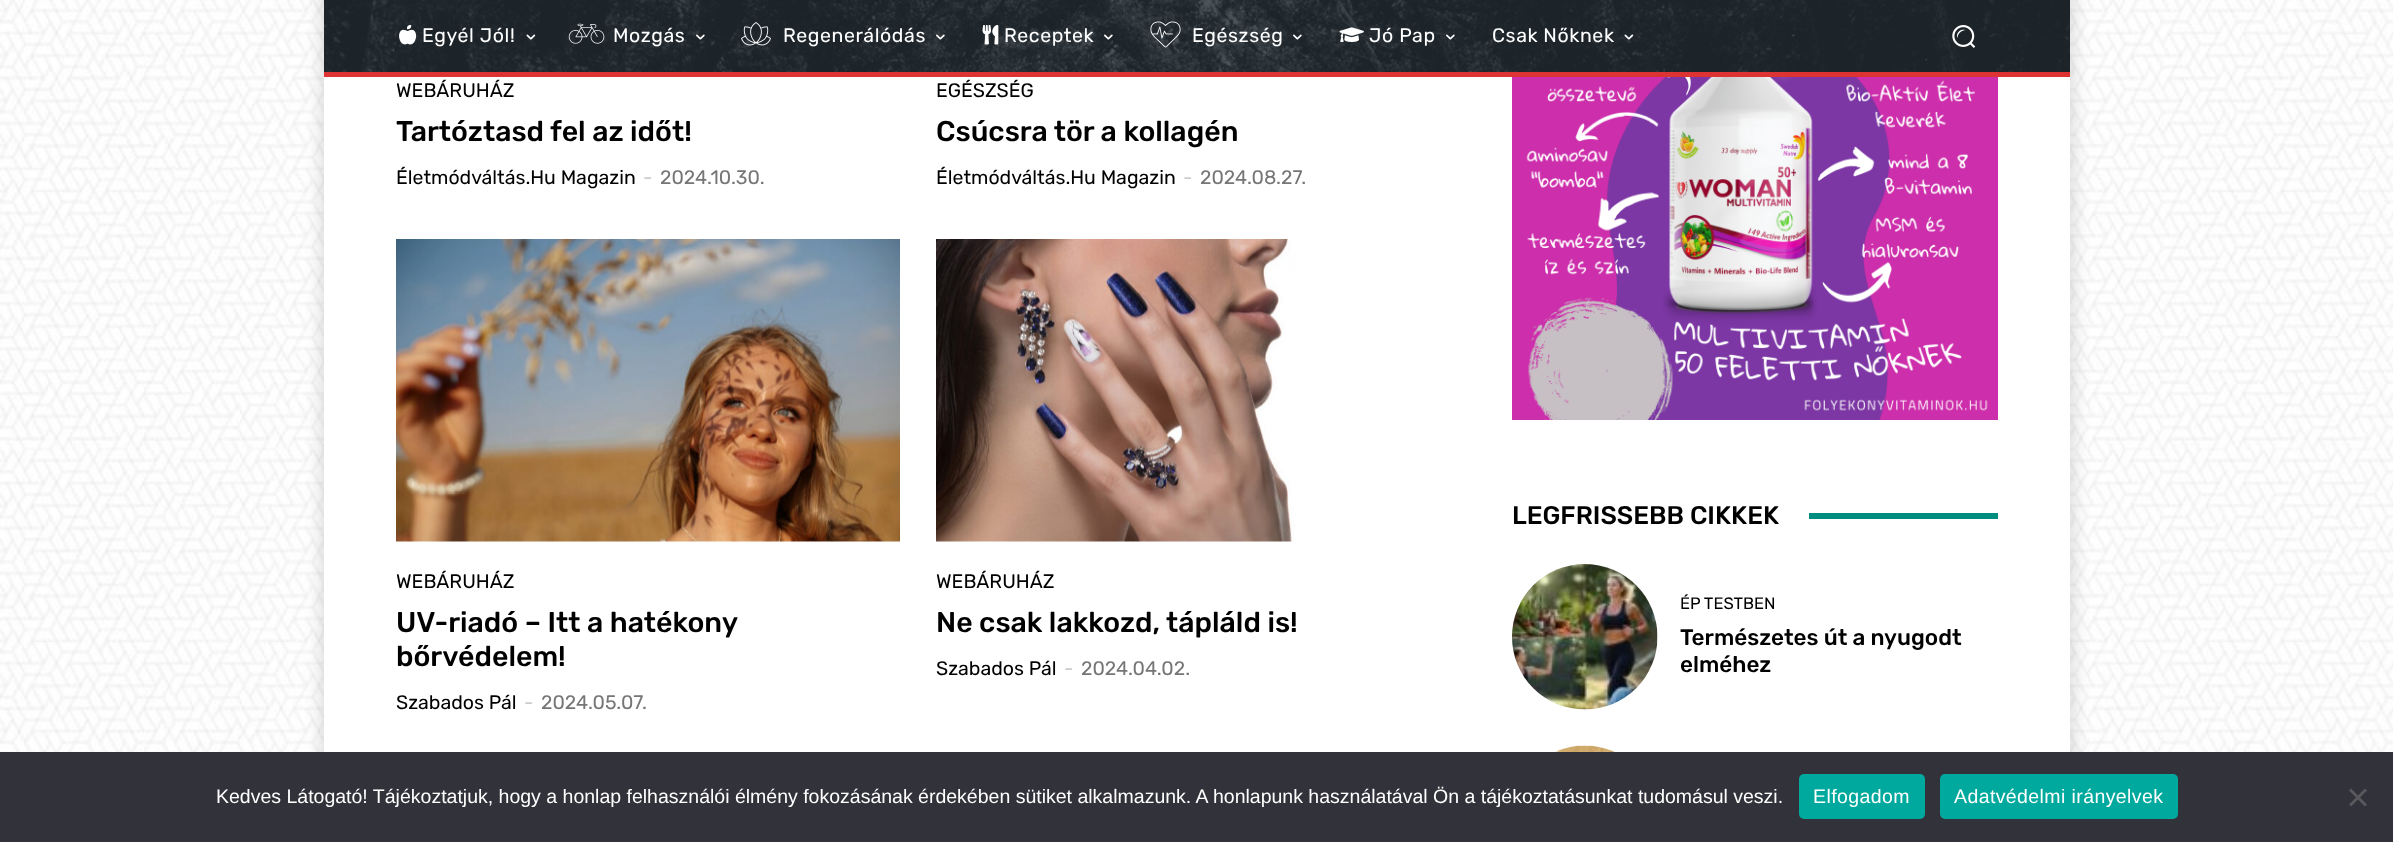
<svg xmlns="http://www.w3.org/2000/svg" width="2393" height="842">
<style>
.a{font:19.5px Rubik;letter-spacing:0.6px;fill:#fff}
.b{font:19.5px Rubik;fill:#000}
.c{font:500 28.5px Rubik;fill:#000}
.d{font:19.5px Rubik;fill:#ccc}
.e{font:19.5px Rubik;fill:#767676}
.f{font:500 25.5px Rubik;fill:#000}
.g{font:16.5px Rubik;fill:#000}
.h{font:500 22.5px Rubik;fill:#000}
.i{font:19.5px Liberation Sans;fill:#fff}
.j{font:19.5px Liberation Sans;letter-spacing:0.4px;fill:#fff}
</style>
<rect width="100%" height="100%" fill="#fff"/>
<image href="1.png" x="0" y="0" width="2393" height="752"/>
<path fill="#0000001f" filter="blur(7.5px)" d="M320 -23h1755v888H320z"/>
<path fill="#232d35" d="M324 0h1746v72H324z"/>
<image href="2.png" x="324" y="0" width="1746" height="72"/>
<image href="3.png" x="399" y="24" width="18" height="21"/>
<image href="4.png" x="526" y="34" width="10" height="6"/>
<image href="5.png" x="568" y="23" width="37" height="21"/>
<image href="6.png" x="696" y="34" width="9" height="6"/>
<image href="7.png" x="741" y="22" width="30" height="24"/>
<image href="8.png" x="936" y="34" width="9" height="6"/>
<image href="9.png" x="982" y="25" width="17" height="20"/>
<image href="10.png" x="1104" y="34" width="9" height="6"/>
<image href="11.png" x="1150" y="21" width="31" height="27"/>
<image href="12.png" x="1293" y="34" width="9" height="6"/>
<image href="13.png" x="1339" y="27" width="25" height="15"/>
<image href="14.png" x="1446" y="34" width="9" height="6"/>
<image href="15.png" x="1624" y="34" width="10" height="6"/>
<image href="16.png" x="1952" y="25" width="24" height="23"/>
<path fill="#d33" d="M324 72h1746v5H324z"/>
<path fill="#fff" d="M324 77h1746v675H324z"/>
<image href="17.png" x="396" y="239" width="504" height="303"/>
<image href="18.png" x="936" y="239" width="359" height="303"/>
<image href="19.png" x="1512" y="77" width="486" height="343"/>
<path fill="#008d7f" d="M1809 513h189v6H1809z"/>
<image href="20.png" x="1512" y="564" width="146" height="146"/>
<image href="21.png" x="1555" y="745" width="60" height="7"/>
<path fill="#32323a" d="M0 752h2393v90H0z"/>
<rect fill="#00a99d" x="1799" y="774" width="126" height="45" rx="5"/>
<rect fill="#00a99d" x="1940" y="774" width="238" height="45" rx="5"/>
<path fill="#59595d" d="M2365 788.5l2 2l-16 16l-2-2z"/>
<path fill="#59595d" d="M2349 790.5l2-2l16 16l-2 2z"/>
<text class="a" x="422" y="42">Egyél Jól!</text>
<text class="a" x="613" y="42">Mozgás</text>
<text class="a" x="783" y="42">Regenerálódás</text>
<text class="a" x="1004" y="42">Receptek</text>
<text class="a" x="1192" y="42">Egészség</text>
<text class="a" x="1369" y="42">Jó Pap</text>
<text class="a" x="1492" y="42">Csak Nőknek</text>
<text class="b" x="396" y="97">WEBÁRUHÁZ</text>
<text class="c" x="396" y="141">Tartóztasd fel az időt!</text>
<text class="b" x="396" y="184">Életmódváltás.Hu Magazin</text>
<text class="d" x="643" y="184">-</text>
<text class="e" x="660" y="184">2024.10.30.</text>
<text class="b" x="936" y="97">EGÉSZSÉG</text>
<text class="c" x="936" y="141">Csúcsra tör a kollagén</text>
<text class="b" x="936" y="184">Életmódváltás.Hu Magazin</text>
<text class="d" x="1183" y="184">-</text>
<text class="e" x="1200" y="184">2024.08.27.</text>
<text class="b" x="396" y="588">WEBÁRUHÁZ</text>
<text class="c" x="396" y="632">UV-riadó – Itt a hatékony</text>
<text class="c" x="396" y="666">bőrvédelem!</text>
<text class="b" x="396" y="709">Szabados Pál</text>
<text class="d" x="524" y="709">-</text>
<text class="e" x="541" y="709">2024.05.07.</text>
<text class="b" x="936" y="588">WEBÁRUHÁZ</text>
<text class="c" x="936" y="632">Ne csak lakkozd, tápláld is!</text>
<text class="b" x="936" y="675">Szabados Pál</text>
<text class="d" x="1064" y="675">-</text>
<text class="e" x="1081" y="675">2024.04.02.</text>
<text class="f" x="1512" y="524">LEGFRISSEBB CIKKEK</text>
<text class="g" x="1680" y="609">ÉP TESTBEN</text>
<text class="h" x="1680" y="645">Természetes út a nyugodt</text>
<text class="h" x="1680" y="672">elméhez</text>
<text class="i" x="216" y="803">Kedves Látogató! Tájékoztatjuk, hogy a honlap felhasználói élmény fokozásának érdekében sütiket alkalmazunk. A honlapunk használatával Ön a tájékoztatásunkat tudomásul veszi.</text>
<text class="j" x="1813" y="803">Elfogadom</text>
<text class="j" x="1954" y="803">Adatvédelmi irányelvek</text>
</svg>
